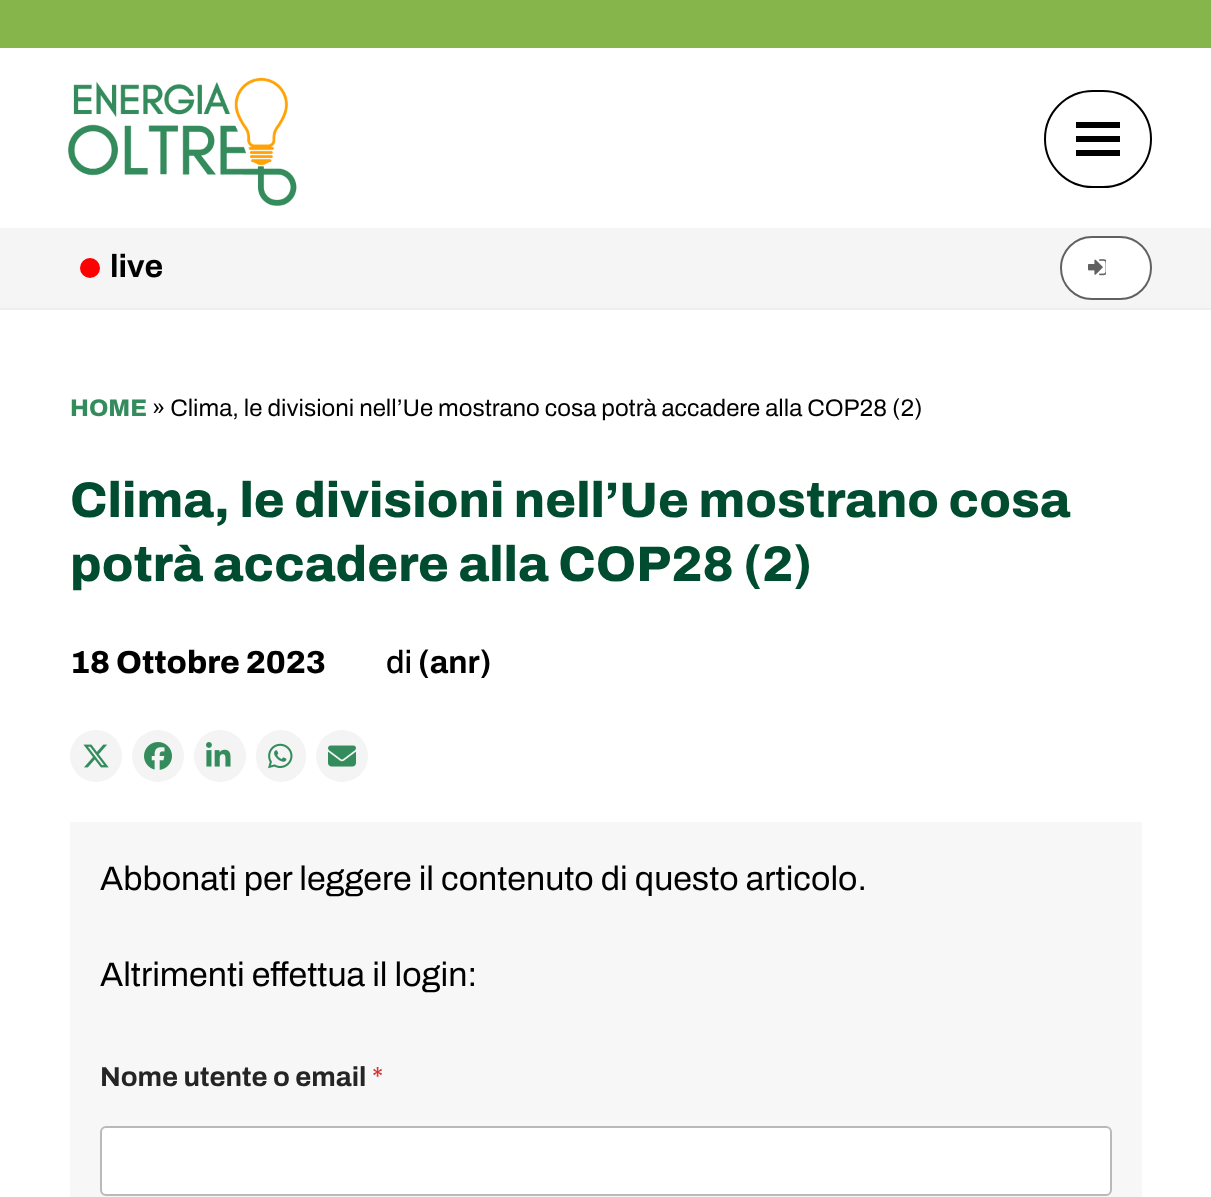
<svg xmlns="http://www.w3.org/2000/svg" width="1211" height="1197">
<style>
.a{font:bold 32px Archivo;fill:#000}
.b{font:800 24px Archivo;fill:#348b5c}
.c{font:24px Archivo;fill:#000}
.d{font:800 50px Archivo;fill:#004c30}
.e{font:800 32px Archivo;fill:#000}
.f{font:500 32px Archivo;fill:#000}
.g{font:34px Archivo;fill:#000}
.h{font:bold 27.5px Archivo;fill:#252525}
.i{font:27.5px Archivo;fill:#d63637}
</style>
<rect width="100%" height="100%" fill="#fff"/>
<path fill="#85b54b" d="M0 0h1211v48H0z"/>
<image href="1.png" x="68" y="77" width="229" height="129"/>
<rect fill="none" stroke="#000" stroke-width="2" x="1045" y="91" width="106" height="96" rx="48"/>
<path fill="#000" d="M1076 136h44v6H1076z"/>
<path fill="#000" d="M1076 122h44v6H1076z"/>
<path fill="#000" d="M1076 150h44v6H1076z"/>
<path fill="#f5f5f5" d="M0 228h1211v80H0z"/>
<circle fill="#f00" cx="90" cy="268" r="10"/>
<rect fill="#fff" stroke="#616161" stroke-width="2" x="1061" y="237" width="90" height="62" rx="31"/>
<image href="2.png" x="1088" y="259" width="18" height="17"/>
<path fill="#eee" d="M0 308h1211v2H0z"/>
<circle fill="#f4f4f4" cx="96" cy="756" r="26"/>
<image href="3.png" x="83" y="744" width="26" height="24"/>
<circle fill="#f4f4f4" cx="158" cy="756" r="26"/>
<image href="4.png" x="144" y="742" width="28" height="28"/>
<circle fill="#f4f4f4" cx="220" cy="756" r="26"/>
<image href="5.png" x="206" y="742" width="25" height="25"/>
<rect fill="#f4f4f4" x="256" y="730" width="50" height="52" rx="25"/>
<image href="6.png" x="268" y="743" width="25" height="26"/>
<circle fill="#f4f4f4" cx="342" cy="756" r="26"/>
<image href="7.png" x="328" y="745" width="28" height="22"/>
<path fill="#f7f7f7" d="M70 822h1072v375H70z"/>
<rect fill="#fff" stroke="#b9b9b9" stroke-width="2" x="101" y="1127" width="1010" height="68" rx="5"/>
<text class="a" x="110" y="277">live</text>
<text class="b" x="70" y="416">HOME</text>
<text class="c" x="152" y="416">» Clima, le divisioni nell’Ue mostrano cosa potrà accadere alla COP28 (2)</text>
<text class="d" x="70" y="517">Clima, le divisioni nell’Ue mostrano cosa</text>
<text class="d" x="70" y="581">potrà accadere alla COP28 (2)</text>
<text class="e" x="70" y="673">18 Ottobre 2023</text>
<text class="f" x="386" y="673">di</text>
<text class="a" x="418" y="673">(anr)</text>
<text class="g" x="100" y="890">Abbonati per leggere il contenuto di questo articolo.</text>
<text class="g" x="100" y="986">Altrimenti effettua il login:</text>
<text class="h" x="100" y="1086">Nome utente o email</text>
<text class="i" x="372" y="1086">*</text>
</svg>
